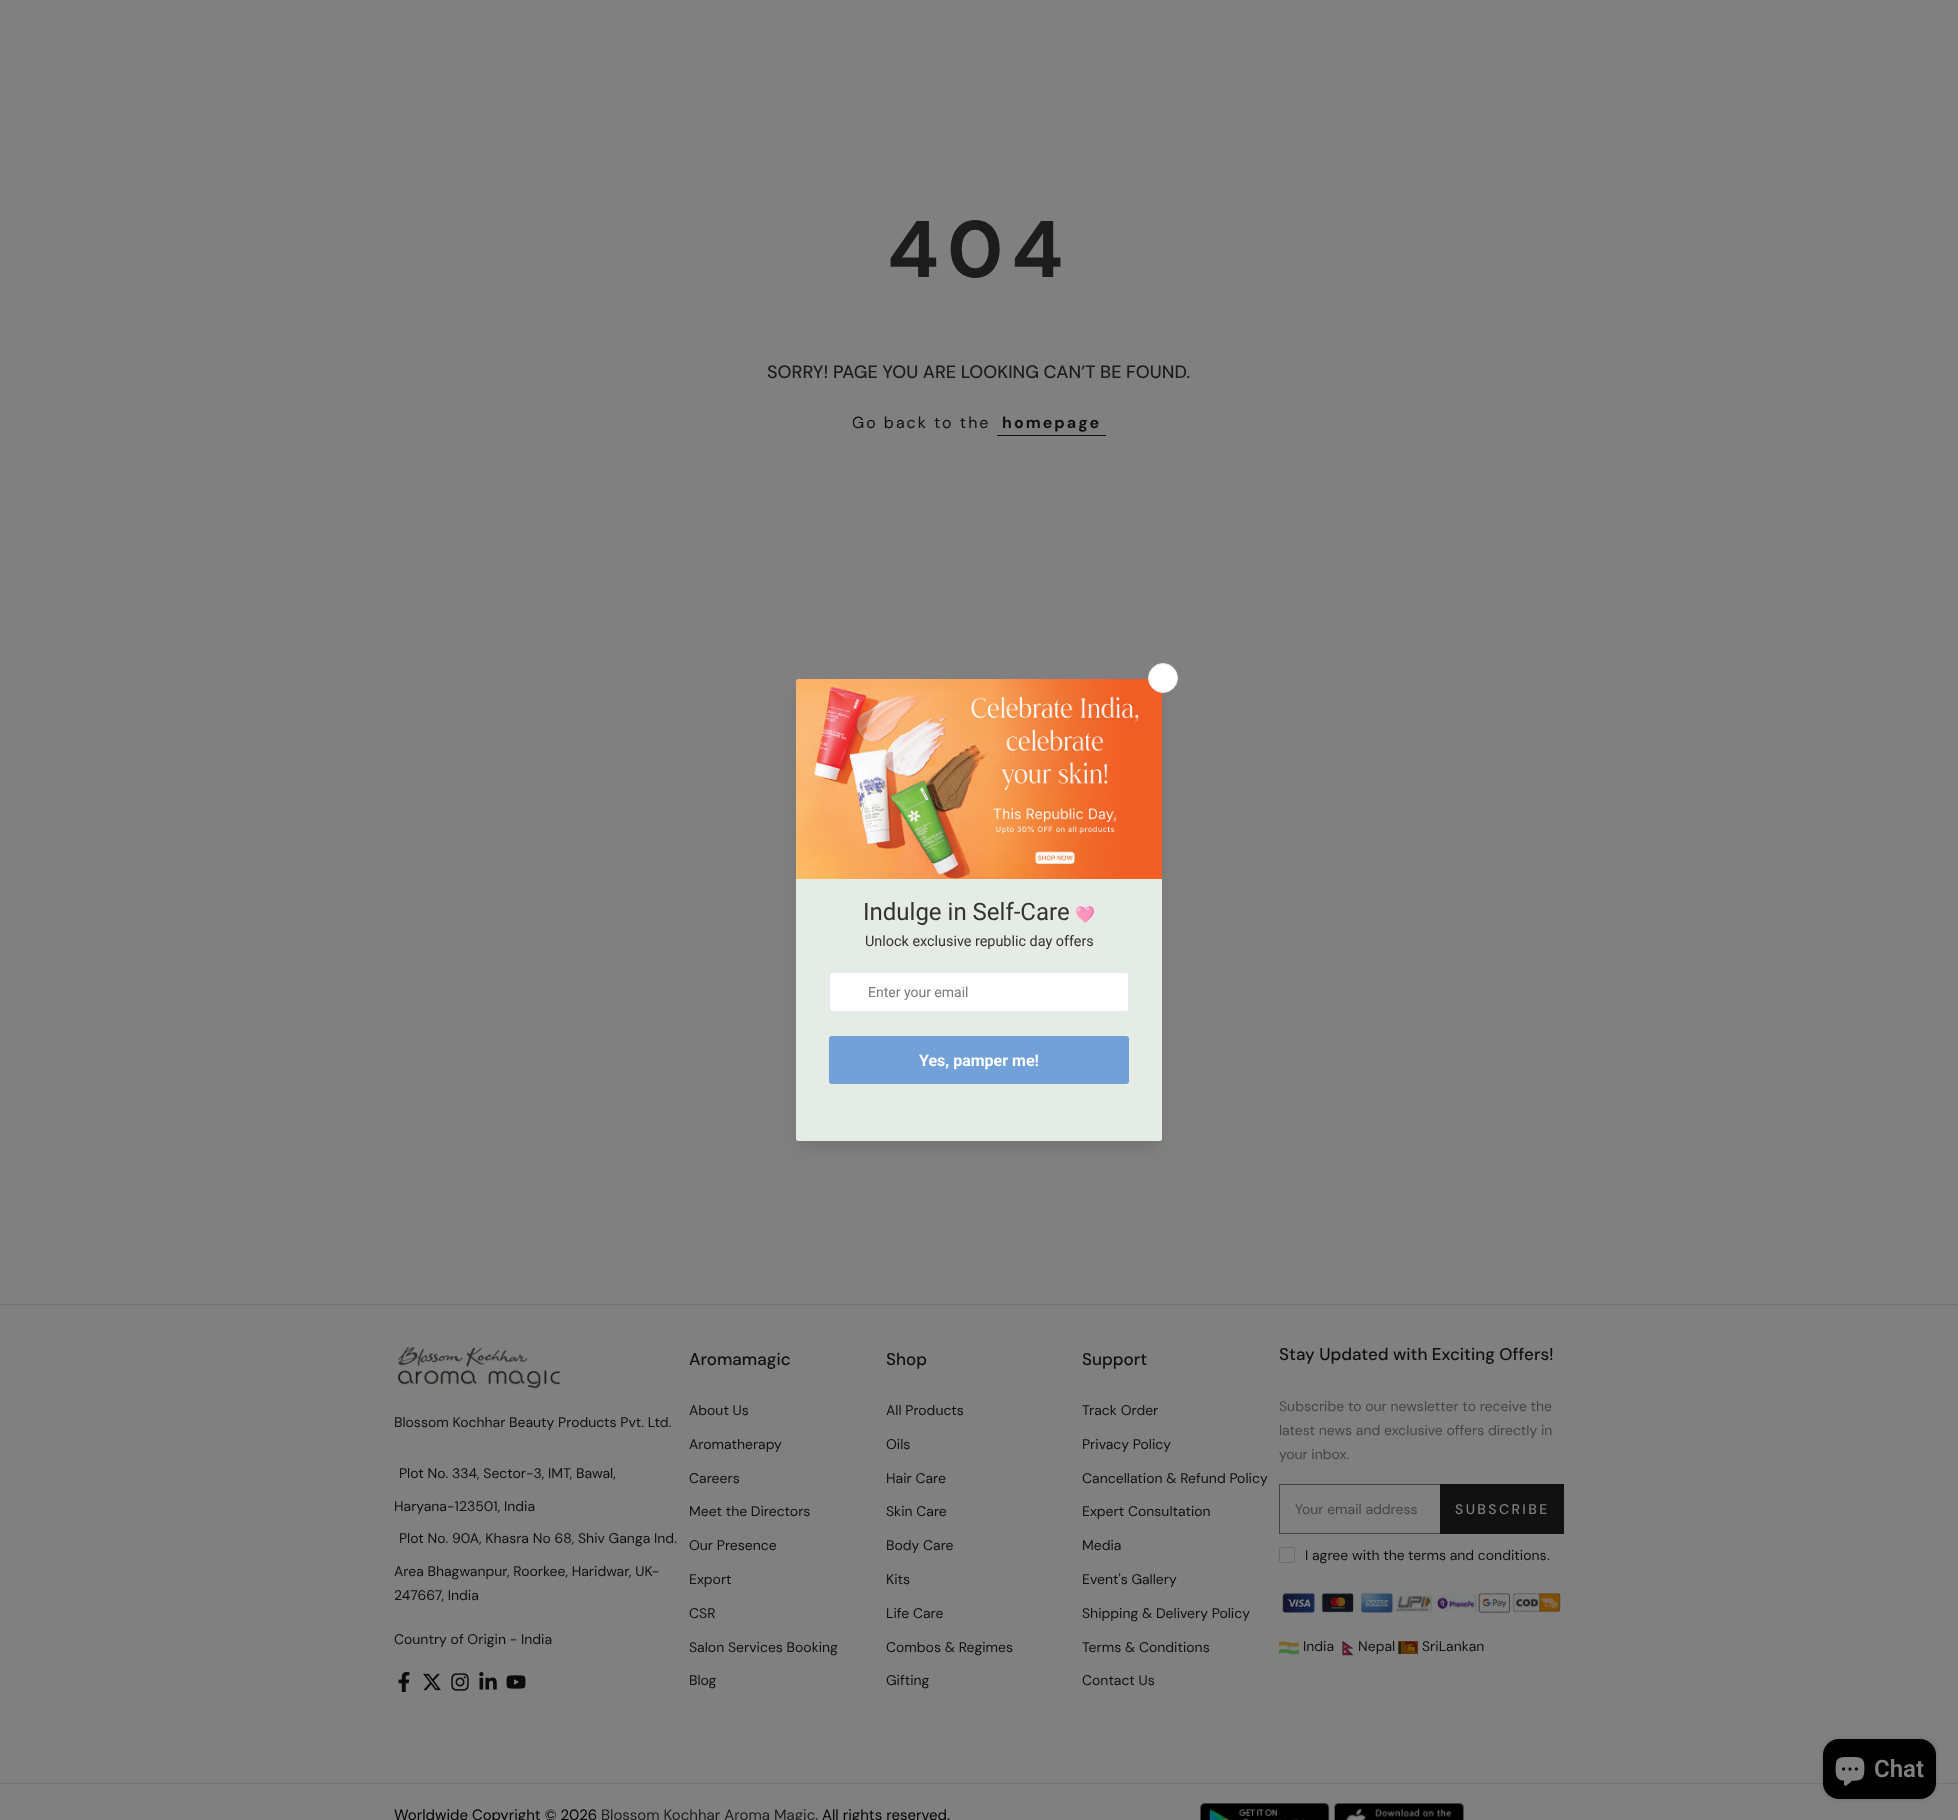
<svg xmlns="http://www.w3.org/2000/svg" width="1958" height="1820">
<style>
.a{font:bold 80px DM Sans;letter-spacing:8px;fill:#1c1c1c}
.b{font:500 18px DM Sans;fill:#1c1c1c}
.c{font:16px DM Sans;letter-spacing:2px;fill:#0f0f0f}
.d{font:bold 16px DM Sans;letter-spacing:2px;fill:#0f0f0f}
.e{font:14px DM Sans;fill:#0f0f0f}
.f{font:500 17px DM Sans;fill:#0f0f0f}
.g{font:14px DM Sans;fill:#444}
.h{font:500 14px DM Sans;letter-spacing:2.4px;fill:#808080}
.i{font:15px DM Sans;fill:#000}
.j{font:15px DM Sans;fill:#1c1c1c}
.k{font:24px Roboto;fill:#333}
.l{font:16px Noto Color Emoji;fill:#444}
.m{font:14.4px Roboto;fill:#333}
.n{font:14px Roboto;fill:#7a7a7a}
.o{font:bold 16px Roboto;fill:#fff}
.p{font:600 24px Roboto;fill:#808080}
</style>
<rect width="100%" height="100%" fill="#808080"/>
<path fill="#111" d="M997 435h109v1H997z"/>
<path fill="#737373" d="M0 1304h1958v1H0z"/>
<image href="1.png" x="397" y="1346" width="163" height="43"/>
<image href="2.png" x="398" y="1672" width="12" height="20"/>
<image href="3.png" x="423" y="1673" width="18" height="18"/>
<image href="4.png" x="451" y="1673" width="18" height="18"/>
<image href="5.png" x="479" y="1672" width="18" height="18"/>
<image href="6.png" x="506" y="1675" width="20" height="14"/>
<path fill="#444" d="M1279 1484h161v1H1279z"/>
<path fill="#444" d="M1279 1533h161v1H1279z"/>
<path fill="#444" d="M1279 1484h1v50H1279z"/>
<path fill="#111" d="M1440 1484h124v50H1440z"/>
<rect fill="none" stroke="#6a6b6c" x="1279.5" y="1547.5" width="15" height="15" rx="1.5"/>
<image href="7.png" x="1282" y="1593" width="279" height="20"/>
<image href="8.png" x="1279" y="1641" width="20" height="14"/>
<image href="9.png" x="1342" y="1640" width="12" height="16"/>
<image href="10.png" x="1398" y="1641" width="20" height="13"/>
<path fill="#737373" d="M0 1783h1958v1H0z"/>
<image href="11.png" x="1200" y="1803" width="130" height="17"/>
<image href="12.png" x="1334" y="1803" width="130" height="17"/>
<path fill="#0000001a" filter="blur(7.5px)" d="M799 692h360v456H799z"/>
<rect fill="#e5ebe5" x="796" y="679" width="366" height="462" rx="3"/>
<image href="13.png" x="796" y="679" width="366" height="200"/>
<circle fill="#fff" stroke="#e2e8f0" cx="1163" cy="678" r="14.5"/>
<rect fill="#e5ebe5" x="796" y="879" width="366" height="262" rx="3"/>
<rect fill="#fff" stroke="#e2e8f0" x="829.5" y="972.5" width="299" height="39" rx="2.5"/>
<rect fill="#72a1da" x="829" y="1036" width="300" height="48" rx="3"/>
<rect fill="#00000026" filter="blur(2.5px)" x="1823" y="1739" width="113" height="60" rx="16"/>
<rect fill="#000" x="1823" y="1739" width="113" height="60" rx="16"/>
<image href="14.png" x="1835" y="1757" width="30" height="29"/>
<text class="a" x="887" y="277">404</text>
<text class="b" x="767" y="378">SORRY! PAGE YOU ARE LOOKING CAN’T BE FOUND.</text>
<text class="c" x="852" y="428">Go back to the</text>
<text class="d" x="1002" y="428">homepage</text>
<text class="e" x="394" y="1427">Blossom Kochhar Beauty Products Pvt. Ltd.</text>
<text class="e" x="399" y="1478">Plot No. 334, Sector-3, IMT, Bawal,</text>
<text class="e" x="394" y="1511">Haryana-123501, India</text>
<text class="e" x="399" y="1543">Plot No. 90A, Khasra No 68, Shiv Ganga Ind.</text>
<text class="e" x="394" y="1576">Area Bhagwanpur, Roorkee, Haridwar, UK-</text>
<text class="e" x="394" y="1600">247667, India</text>
<text class="e" x="394" y="1644">Country of Origin - India</text>
<text class="f" x="689" y="1365">Aromamagic</text>
<text class="e" x="689" y="1415">About Us</text>
<text class="e" x="689" y="1449">Aromatherapy</text>
<text class="e" x="689" y="1483">Careers</text>
<text class="e" x="689" y="1516">Meet the Directors</text>
<text class="e" x="689" y="1550">Our Presence</text>
<text class="e" x="689" y="1584">Export</text>
<text class="e" x="689" y="1618">CSR</text>
<text class="e" x="689" y="1652">Salon Services Booking</text>
<text class="e" x="689" y="1685">Blog</text>
<text class="f" x="886" y="1365">Shop</text>
<text class="e" x="886" y="1415">All Products</text>
<text class="e" x="886" y="1449">Oils</text>
<text class="e" x="886" y="1483">Hair Care</text>
<text class="e" x="886" y="1516">Skin Care</text>
<text class="e" x="886" y="1550">Body Care</text>
<text class="e" x="886" y="1584">Kits</text>
<text class="e" x="886" y="1618">Life Care</text>
<text class="e" x="886" y="1652">Combos &amp; Regimes</text>
<text class="e" x="886" y="1685">Gifting</text>
<text class="f" x="1082" y="1365">Support</text>
<text class="e" x="1082" y="1415">Track Order</text>
<text class="e" x="1082" y="1449">Privacy Policy</text>
<text class="e" x="1082" y="1483">Cancellation &amp; Refund Policy</text>
<text class="e" x="1082" y="1516">Expert Consultation</text>
<text class="e" x="1082" y="1550">Media</text>
<text class="e" x="1082" y="1584">Event's Gallery</text>
<text class="e" x="1082" y="1618">Shipping &amp; Delivery Policy</text>
<text class="e" x="1082" y="1652">Terms &amp; Conditions</text>
<text class="e" x="1082" y="1685">Contact Us</text>
<text class="f" x="1279" y="1360">Stay Updated with Exciting Offers!</text>
<text class="g" x="1279" y="1411">Subscribe to our newsletter to receive the</text>
<text class="g" x="1279" y="1435">latest news and exclusive offers directly in</text>
<text class="g" x="1279" y="1459">your inbox.</text>
<text class="g" x="1295" y="1514">Your email address</text>
<text class="h" x="1455" y="1514">SUBSCRIBE</text>
<text class="e" x="1305" y="1560">I agree with the</text>
<text class="e" x="1408" y="1560">terms and conditions</text>
<text class="e" x="1547" y="1560">.</text>
<text class="e" x="1303" y="1651">India</text>
<text class="e" x="1358" y="1651">Nepal</text>
<text class="e" x="1422" y="1651">SriLankan</text>
<text class="i" x="394" y="1820">Worldwide Copyright © 2026</text>
<text class="j" x="601" y="1820">Blossom Kochhar Aroma Magic.</text>
<text class="i" x="822" y="1820">All rights reserved.</text>
<text class="k" x="863" y="920">Indulge in Self-Care</text>
<text class="l" x="1075" y="920">🩷</text>
<text class="m" x="865" y="946">Unlock exclusive republic day offers</text>
<text class="n" x="868" y="997">Enter your email</text>
<text class="o" x="919" y="1066">Yes, pamper me!</text>
<text class="p" x="1874" y="1777">Chat</text>
</svg>
